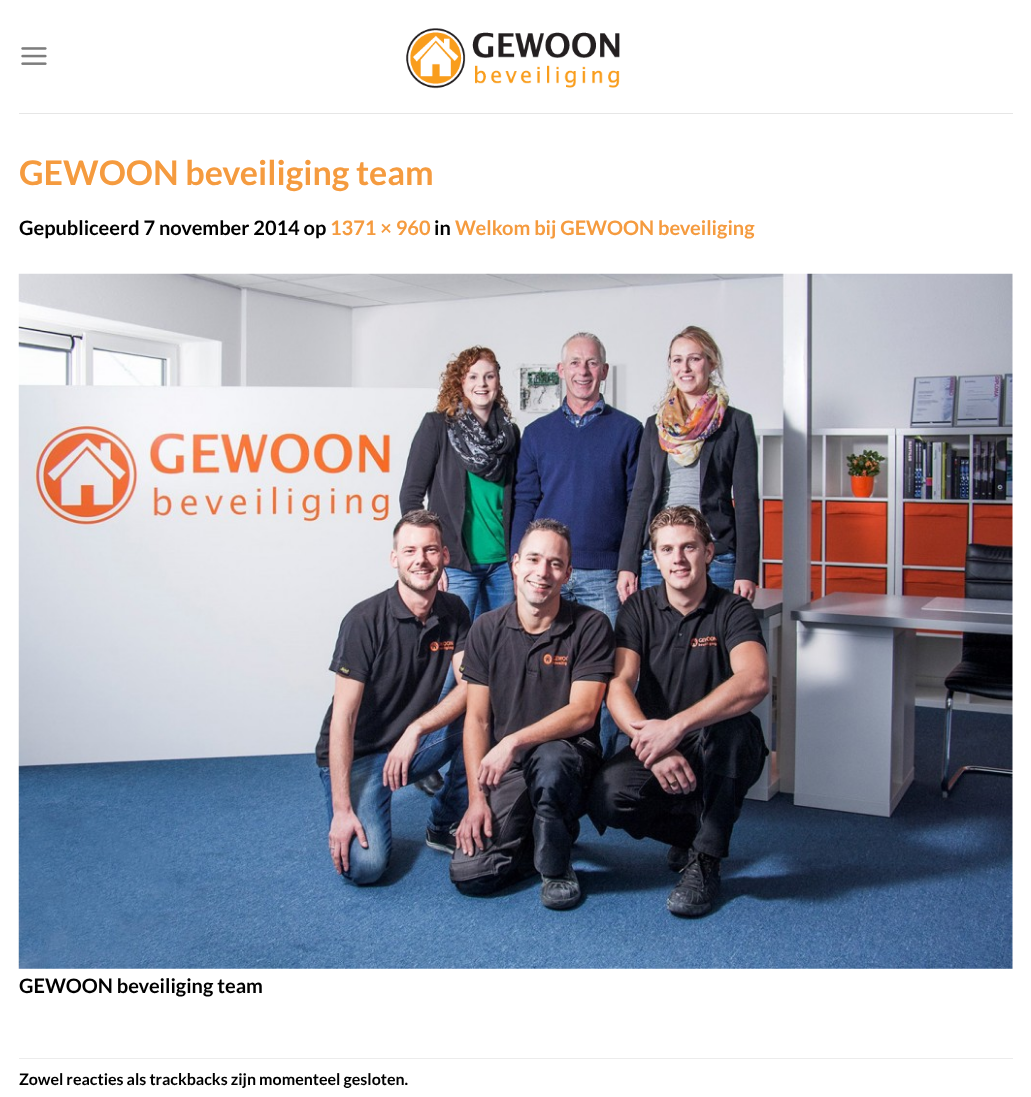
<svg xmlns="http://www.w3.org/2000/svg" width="1031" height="1097">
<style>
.a{font:bold 34px Lato;fill:#f59b3f}
.b{font:bold 20px Lato;fill:#000}
.c{font:bold 20px Lato;fill:#f59b3f}
.d{font:bold 16px Lato;fill:#000}
</style>
<rect width="100%" height="100%" fill="#fff"/>
<image href="1.png" x="21" y="47" width="26" height="18"/>
<image href="2.png" x="406" y="28" width="214" height="61"/>
<path fill="#e6e6e6" d="M19 113h994v1H19z"/>
<image href="3.png" x="18" y="273" width="995" height="696"/>
<path fill="#ececec" d="M19 1058h994v1H19z"/>
<text class="a" x="19" y="185">GEWOON beveiliging team</text>
<text class="b" x="19" y="235">Gepubliceerd 7 november 2014 op</text>
<text class="c" x="330" y="235">1371 × 960</text>
<text class="b" x="434" y="235">in</text>
<text class="c" x="455" y="235">Welkom bij GEWOON beveiliging</text>
<text class="b" x="19" y="993">GEWOON beveiliging team</text>
<text class="d" x="19" y="1085">Zowel reacties als trackbacks zijn momenteel gesloten.</text>
</svg>
